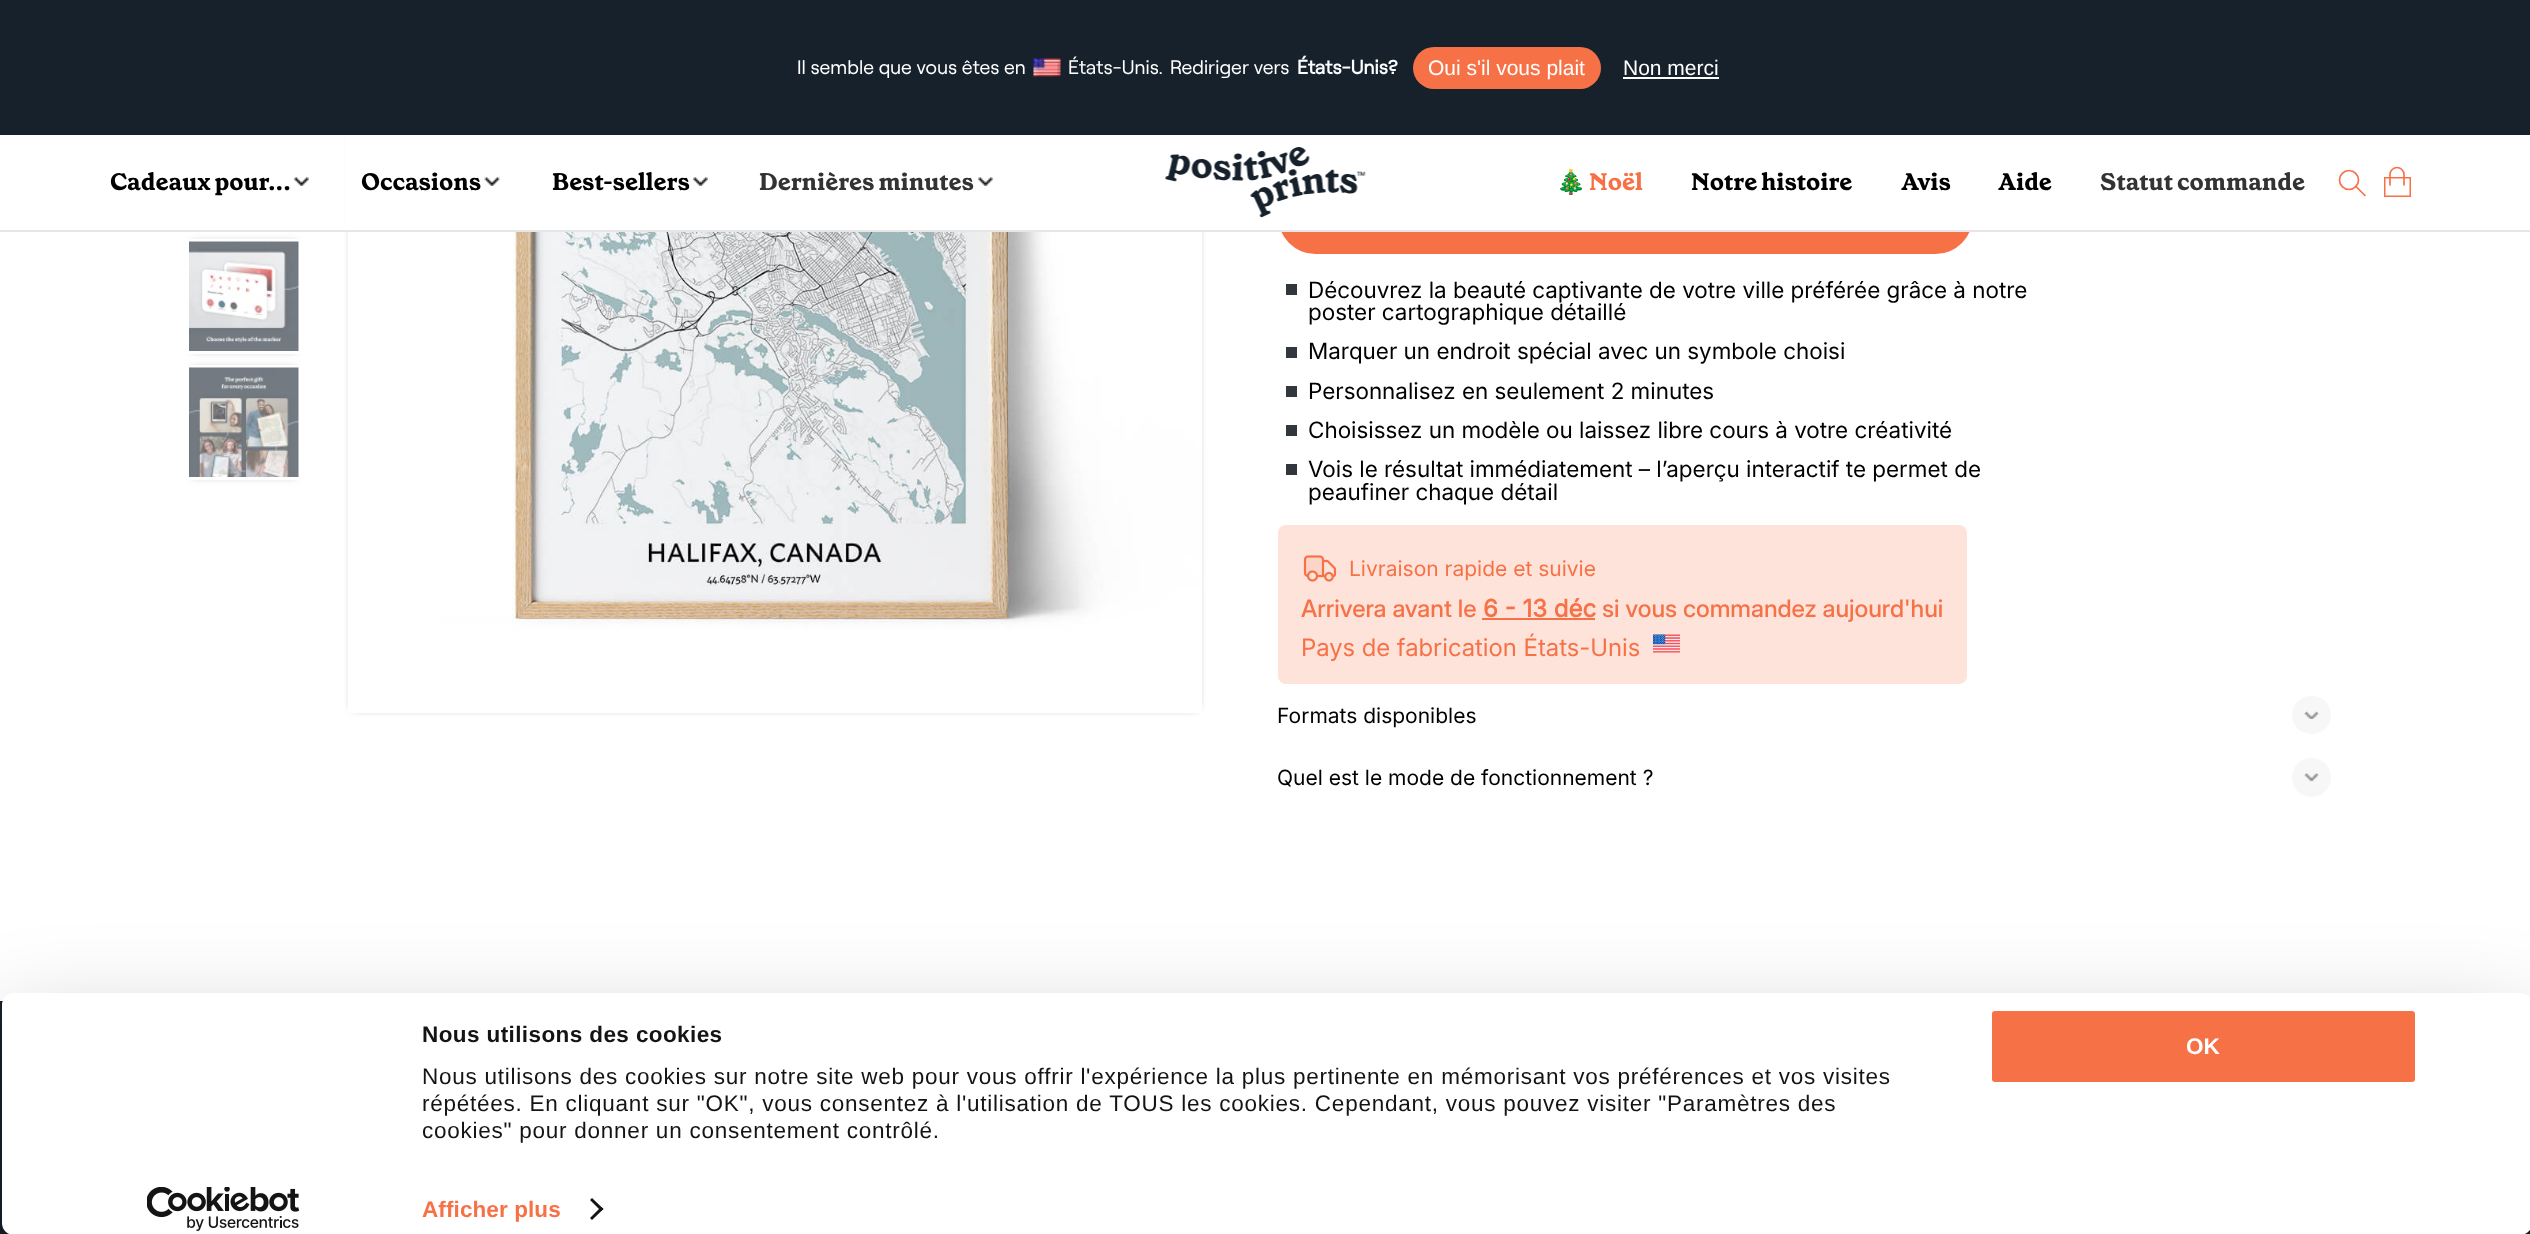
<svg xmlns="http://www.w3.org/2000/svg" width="2530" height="1234">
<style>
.a{font:19.5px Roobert;fill:#fff}
.b{font:bold 19.5px Roobert;fill:#fff}
.c{font:21px Liberation Sans;fill:#fff}
.d{font:bold 24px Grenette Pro;fill:#000}
.e{font:bold 24px Grenette Pro;fill:#333}
.f{font:24px Noto Color Emoji;fill:#f77147}
.g{font:bold 24px Grenette Pro;fill:#f77147}
.h{font:22.5px 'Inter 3';fill:#000}
.i{font:21px Inter;fill:#f77147}
.j{font:500 24px Inter;fill:#f77147}
.k{font:bold 24px Inter;fill:#f77147}
.l{font:24px 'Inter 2';fill:#f77147}
.m{font:21px Inter;fill:#000}
.n{font:bold 22.5px Liberation Sans;letter-spacing:0.4px;fill:#141414}
.o{font:22.5px Liberation Sans;letter-spacing:0.75px;fill:#141414}
.p{font:bold 22.5px Liberation Sans;letter-spacing:0.1px;fill:#f77147}
.q{font:bold 22.5px Liberation Sans;fill:#fff}
</style>
<defs>
<clipPath id="clip1"><path d="M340 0h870v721h-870zm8-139h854v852h-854z" clip-rule="evenodd"/></clipPath>
<clipPath id="clip2"><path d="M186 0h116v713H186z"/></clipPath>
<clipPath id="clip3"><path d="M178 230h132v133h-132zm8 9h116v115h-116z" clip-rule="evenodd"/></clipPath>
<clipPath id="clip4"><path d="M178 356h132v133h-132zm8 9h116v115h-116z" clip-rule="evenodd"/></clipPath>
<clipPath id="clip5"><path d="M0 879h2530v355h-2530zm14 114h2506c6.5 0 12 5.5 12 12v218c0 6.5-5.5 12-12 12h-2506c-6.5 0-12-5.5-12-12v-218c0-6.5 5.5-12 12-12z" clip-rule="evenodd"/></clipPath>
</defs>
<rect width="100%" height="100%" fill="#fff"/>
<g clip-path="url(#clip1)">
<path fill="#0000008c" filter="blur(4px)" d="M353 -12h844v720H353z"/>
</g>
<rect fill="#f77147" x="1278" y="179" width="695" height="75" rx="37.5"/>
<path fill="#fff" d="M345 135h1628v95H345z"/>
<g clip-path="url(#clip2)">
<g clip-path="url(#clip3)">
<path fill="#6666668c" filter="blur(4px)" d="M191 243h106v107H191z"/>
</g>
</g>
<path fill="#e6e6e6" d="M0 230h2530v2H0z"/>
<path fill="#16212c" d="M0 0h2530v135H0z"/>
<image href="1.png" x="1033" y="58" width="28" height="19"/>
<rect fill="#f77147" x="1413" y="47" width="188" height="42" rx="21"/>
<path fill="#fff" d="M1623 77h96v2H1623z"/>
<image href="2.png" x="294" y="177" width="15" height="9"/>
<image href="3.png" x="484" y="177" width="16" height="9"/>
<image href="2.png" x="693" y="177" width="15" height="9"/>
<image href="2.png" x="978" y="177" width="15" height="9"/>
<image href="4.png" x="1165" y="147" width="201" height="71"/>
<circle fill="none" stroke="#f77147" stroke-width="1.7" cx="2349" cy="180" r="9.5"/>
<path fill="none" stroke="#f77147" stroke-width="1.7" stroke-linecap="round" d="M2356 186.5l9 9"/>
<path fill="none" stroke="#f77147" stroke-width="1.5" d="M2384.75 177.75h25.5v18.5H2384.75z"/>
<path fill="none" stroke="#f77147" stroke-width="1.7" d="M2404 185.5v-11c0-4-3.5-7-7-7c-3.5 0-7 3-7 7v11"/>
<image href="5.png" x="189" y="241" width="110" height="110"/>
<g clip-path="url(#clip2)">
<g clip-path="url(#clip4)">
<path fill="#6666668c" filter="blur(4px)" d="M191 369h106v107H191z"/>
</g>
</g>
<image href="6.png" x="189" y="367" width="110" height="110"/>
<image href="7.png" x="358" y="232" width="844" height="481"/>
<path fill="#31373d" d="M1286 284h11v11H1286z"/>
<path fill="#31373d" d="M1286 347h11v11H1286z"/>
<path fill="#31373d" d="M1286 386h11v11H1286z"/>
<path fill="#31373d" d="M1286 425h11v11H1286z"/>
<path fill="#31373d" d="M1286 464h11v11H1286z"/>
<rect fill="#fee3da" x="1278" y="525" width="689" height="159" rx="8"/>
<image href="8.png" x="1303" y="555" width="34" height="27"/>
<path fill="#f77147" d="M1482 618h113v2H1482z"/>
<image href="9.png" x="1653" y="634" width="27" height="19"/>
<rect fill="#f7f7f8" x="2292" y="696" width="39" height="38" rx="19"/>
<image href="10.png" x="2304" y="711" width="15" height="8"/>
<circle fill="#f7f7f8" cx="2311.5" cy="777.5" r="19.5"/>
<image href="11.png" x="2304" y="773" width="15" height="9"/>
<path fill="#16212c" d="M0 1001h2530v233H0z"/>
<g clip-path="url(#clip5)">
<rect fill="#0000004d" filter="blur(52.5px)" x="2" y="1038" width="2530" height="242" rx="12"/>
</g>
<rect fill="#fff" x="2" y="993" width="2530" height="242" rx="12"/>
<path fill="#141414" d="M592 1198l11.5 11l-2.5 2l-11-11z"/>
<path fill="#141414" d="M601 1207l2.5 2l-11.5 11l-2-2z"/>
<rect fill="#f77147" stroke="#fff" stroke-width="3" x="1990.5" y="1009.5" width="426" height="74" rx="4.5"/>
<image href="12.png" x="147" y="1187" width="153" height="44"/>
<text class="a" x="797" y="74">Il semble que vous êtes en</text>
<text class="a" x="1068" y="74">États-Unis.</text>
<text class="a" x="1170" y="74">Rediriger vers</text>
<text class="b" x="1297" y="74">États-Unis?</text>
<text class="c" x="1428" y="75">Oui s'il vous plait</text>
<text class="c" x="1623" y="75">Non merci</text>
<text class="d" x="110" y="190">Cadeaux pour...</text>
<text class="d" x="361" y="190">Occasions</text>
<text class="d" x="552" y="190">Best-sellers</text>
<text class="e" x="759" y="190">Dernières minutes</text>
<text class="f" x="1556" y="190">🎄</text>
<text class="g" x="1589" y="190">Noël</text>
<text class="d" x="1691" y="190">Notre histoire</text>
<text class="d" x="1901" y="190">Avis</text>
<text class="d" x="1998" y="190">Aide</text>
<text class="e" x="2100" y="190">Statut commande</text>
<text class="h" x="1308" y="298">Découvrez la beauté captivante de votre ville préférée grâce à notre</text>
<text class="h" x="1308" y="320">poster cartographique détaillé</text>
<text class="h" x="1308" y="359">Marquer un endroit spécial avec un symbole choisi</text>
<text class="h" x="1308" y="399">Personnalisez en seulement 2 minutes</text>
<text class="h" x="1308" y="438">Choisissez un modèle ou laissez libre cours à votre créativité</text>
<text class="h" x="1308" y="477">Vois le résultat immédiatement – l’aperçu interactif te permet de</text>
<text class="h" x="1308" y="500">peaufiner chaque détail</text>
<text class="i" x="1349" y="576">Livraison rapide et suivie</text>
<text class="j" x="1301" y="617">Arrivera avant le</text>
<text class="k" x="1483" y="617">6 - 13 déc</text>
<text class="j" x="1602" y="617">si vous commandez aujourd'hui</text>
<text class="l" x="1301" y="656">Pays de fabrication États-Unis</text>
<text class="m" x="1277" y="723">Formats disponibles</text>
<text class="m" x="1277" y="785">Quel est le mode de fonctionnement ?</text>
<text class="n" x="422" y="1042">Nous utilisons des cookies</text>
<text class="o" x="422" y="1084">Nous utilisons des cookies sur notre site web pour vous offrir l'expérience la plus pertinente en mémorisant vos préférences et vos visites</text>
<text class="o" x="422" y="1111">répétées. En cliquant sur "OK", vous consentez à l'utilisation de TOUS les cookies. Cependant, vous pouvez visiter "Paramètres des</text>
<text class="o" x="422" y="1138">cookies" pour donner un consentement contrôlé.</text>
<text class="p" x="422" y="1217">Afficher plus</text>
<text class="q" x="2186" y="1054">OK</text>
</svg>
